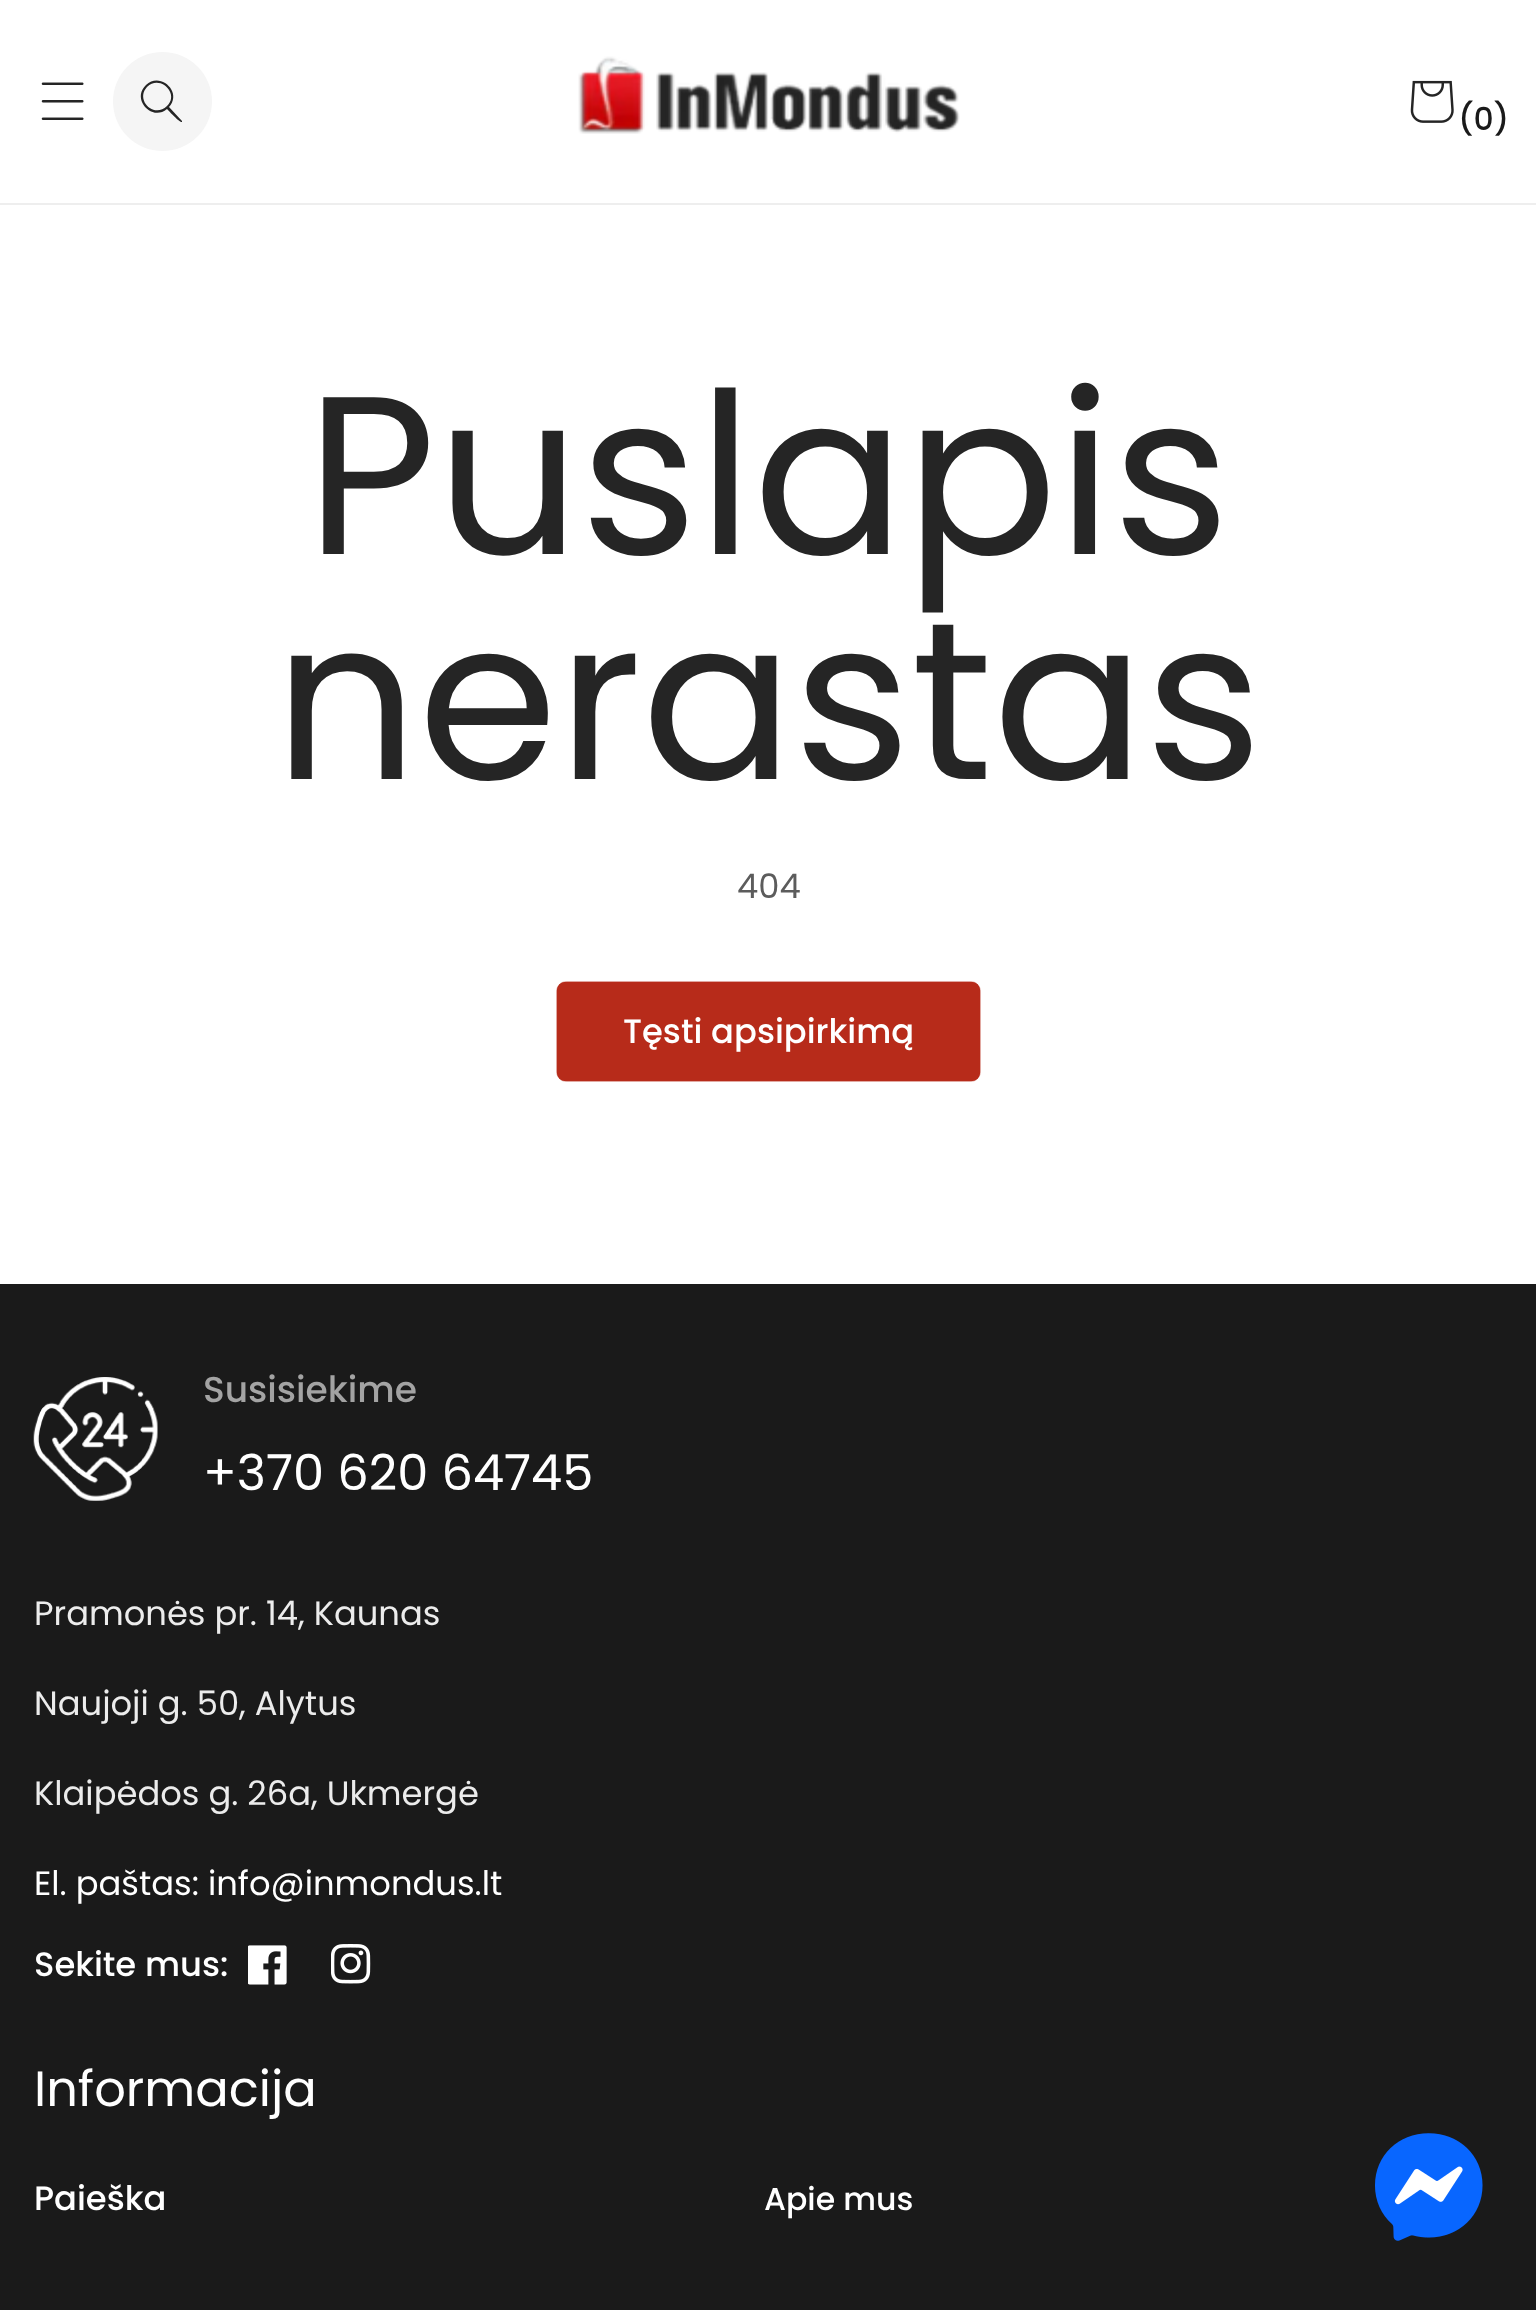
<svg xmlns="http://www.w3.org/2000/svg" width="1536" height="2310">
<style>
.a{font:500 31.5px Poppins;fill:#1a1a1a}
.b{font:225px Poppins;fill:#252525}
.c{font:33.75px Poppins;fill:#5c5c5c}
.d{font:500 33.75px Poppins;fill:#fff}
.e{font:500 36px Poppins;fill:#a3a3a3}
.f{font:49.5px Poppins;fill:#fff}
.g{font:33.75px Poppins;fill:#ececec}
.h{font:33.75px Poppins;fill:#fff}
.i{font:500 31.5px Poppins;fill:#fff}
</style>
<rect width="100%" height="100%" fill="#fff"/>
<path fill="#eee" d="M0 203h1536v2H0z"/>
<image href="1.png" x="41" y="82" width="43" height="38"/>
<circle fill="#f5f5f5" cx="162.5" cy="101.5" r="49.5"/>
<path fill="#252525" fill-rule="evenodd" d="M167 106c-13 13-32-6-20-19c13-13 33 7 20 19zm0 3c-15 13-36-10-21-24c14-14 37 7 23 22l13 14v1c-2 1-13-11-15-13z"/>
<image href="2.png" x="578" y="56" width="382" height="78"/>
<image href="3.png" x="1410" y="80" width="44" height="43"/>
<rect fill="#b72b1a" x="556" y="981" width="425" height="101" rx="11"/>
<rect fill="none" stroke="#fff" stroke-width="0.7" x="556.35" y="981.35" width="424.3" height="100.3" rx="8.65"/>
<path fill="#1a1a1a" d="M0 1284h1536v1026H0z"/>
<image href="4.png" x="33" y="1377" width="125" height="124"/>
<image href="5.png" x="248" y="1945" width="39" height="40"/>
<image href="6.png" x="331" y="1944" width="40" height="40"/>
<image href="7.png" x="1375" y="2133" width="108" height="108"/>
<text class="a" x="1458" y="130">(0)</text>
<text class="b" x="306" y="554">Puslapis</text>
<text class="b" x="274" y="779">nerastas</text>
<text class="c" x="737" y="898">404</text>
<text class="d" x="623" y="1043">Tęsti apsipirkimą</text>
<text class="e" x="203" y="1402">Susisiekime</text>
<text class="f" x="203" y="1490">+370 620 64745</text>
<text class="g" x="34" y="1625">Pramonės pr. 14, Kaunas</text>
<text class="g" x="34" y="1715">Naujoji g. 50, Alytus</text>
<text class="g" x="34" y="1805">Klaipėdos g. 26a, Ukmergė</text>
<text class="h" x="34" y="1895">El. paštas: info@inmondus.lt</text>
<text class="d" x="34" y="1976">Sekite mus:</text>
<text class="f" x="34" y="2106">Informacija</text>
<text class="d" x="34" y="2210">Paieška</text>
<text class="i" x="764" y="2210">Apie mus</text>
</svg>
